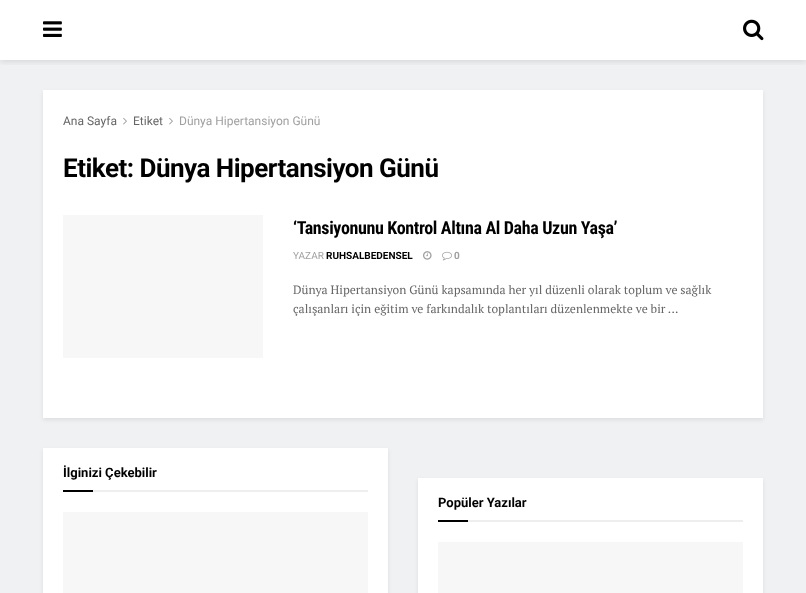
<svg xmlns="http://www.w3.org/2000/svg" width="806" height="593">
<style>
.a{font:12px Roboto;fill:#666}
.b{font:12px Roboto;fill:#a0a0a0}
.c{font:bold 26px Roboto;letter-spacing:-0.5px;fill:#000}
.d{font:bold 18px Roboto Condensed;letter-spacing:-0.35px;fill:#000}
.e{font:10px Roboto;fill:#a0a0a0}
.f{font:bold 10px Roboto;fill:#000}
.g{font:bold 10px Roboto;fill:#a0a0a0}
.h{font:12px PT Serif;fill:#666}
.i{font:bold 13px Roboto;fill:#000}
</style>
<defs>
<clipPath id="clip1"><path d="M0 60h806v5H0z"/></clipPath>
</defs>
<rect width="100%" height="100%" fill="#fff"/>
<path fill="#f0f1f2" d="M0 60h806v533H0z"/>
<g clip-path="url(#clip1)">
<path fill="#0000001a" filter="blur(3px)" d="M0 2h806v60H0z"/>
</g>
<image href="1.png" x="43" y="21" width="19" height="16"/>
<image href="2.png" x="743" y="19" width="21" height="22"/>
<path fill="#00000014" filter="blur(2px)" d="M43 92h720v328H43z"/>
<path fill="#fff" d="M43 90h720v328H43z"/>
<image href="3.png" x="123" y="117" width="4" height="8"/>
<image href="3.png" x="169" y="117" width="4" height="8"/>
<path fill="#f7f7f7" d="M63 215h200v143H63z"/>
<image href="4.png" x="423" y="251" width="9" height="9"/>
<image href="5.png" x="442" y="251" width="10" height="10"/>
<path fill="#00000014" filter="blur(2px)" d="M43 450h345v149H43z"/>
<path fill="#fff" d="M43 448h345v145H43z"/>
<path fill="#eee" d="M93 490h275v2H93z"/>
<path fill="#000" d="M63 490h30v2H63z"/>
<path fill="#f7f7f7" d="M63 512h305v81H63z"/>
<path fill="#00000014" filter="blur(2px)" d="M418 480h345v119H418z"/>
<path fill="#fff" d="M418 478h345v115H418z"/>
<path fill="#eee" d="M468 520h275v2H468z"/>
<path fill="#000" d="M438 520h30v2H438z"/>
<path fill="#f7f7f7" d="M438 542h305v51H438z"/>
<text class="a" x="63" y="125">Ana Sayfa</text>
<text class="a" x="133" y="125">Etiket</text>
<text class="b" x="179" y="125">Dünya Hipertansiyon Günü</text>
<text class="c" x="63" y="177">Etiket: Dünya Hipertansiyon Günü</text>
<text class="d" x="293" y="234">‘Tansiyonunu Kontrol Altına Al Daha Uzun Yaşa’</text>
<text class="e" x="293" y="259">YAZAR</text>
<text class="f" x="326" y="259">RUHSALBEDENSEL</text>
<text class="g" x="454" y="259">0</text>
<text class="h" x="293" y="294">Dünya Hipertansiyon Günü kapsamında her yıl düzenli olarak toplum ve sağlık</text>
<text class="h" x="293" y="313">çalışanları için eğitim ve farkındalık toplantıları düzenlenmekte ve bir ...</text>
<text class="i" x="63" y="477">İlginizi Çekebilir</text>
<text class="i" x="438" y="507">Popüler Yazılar</text>
</svg>
